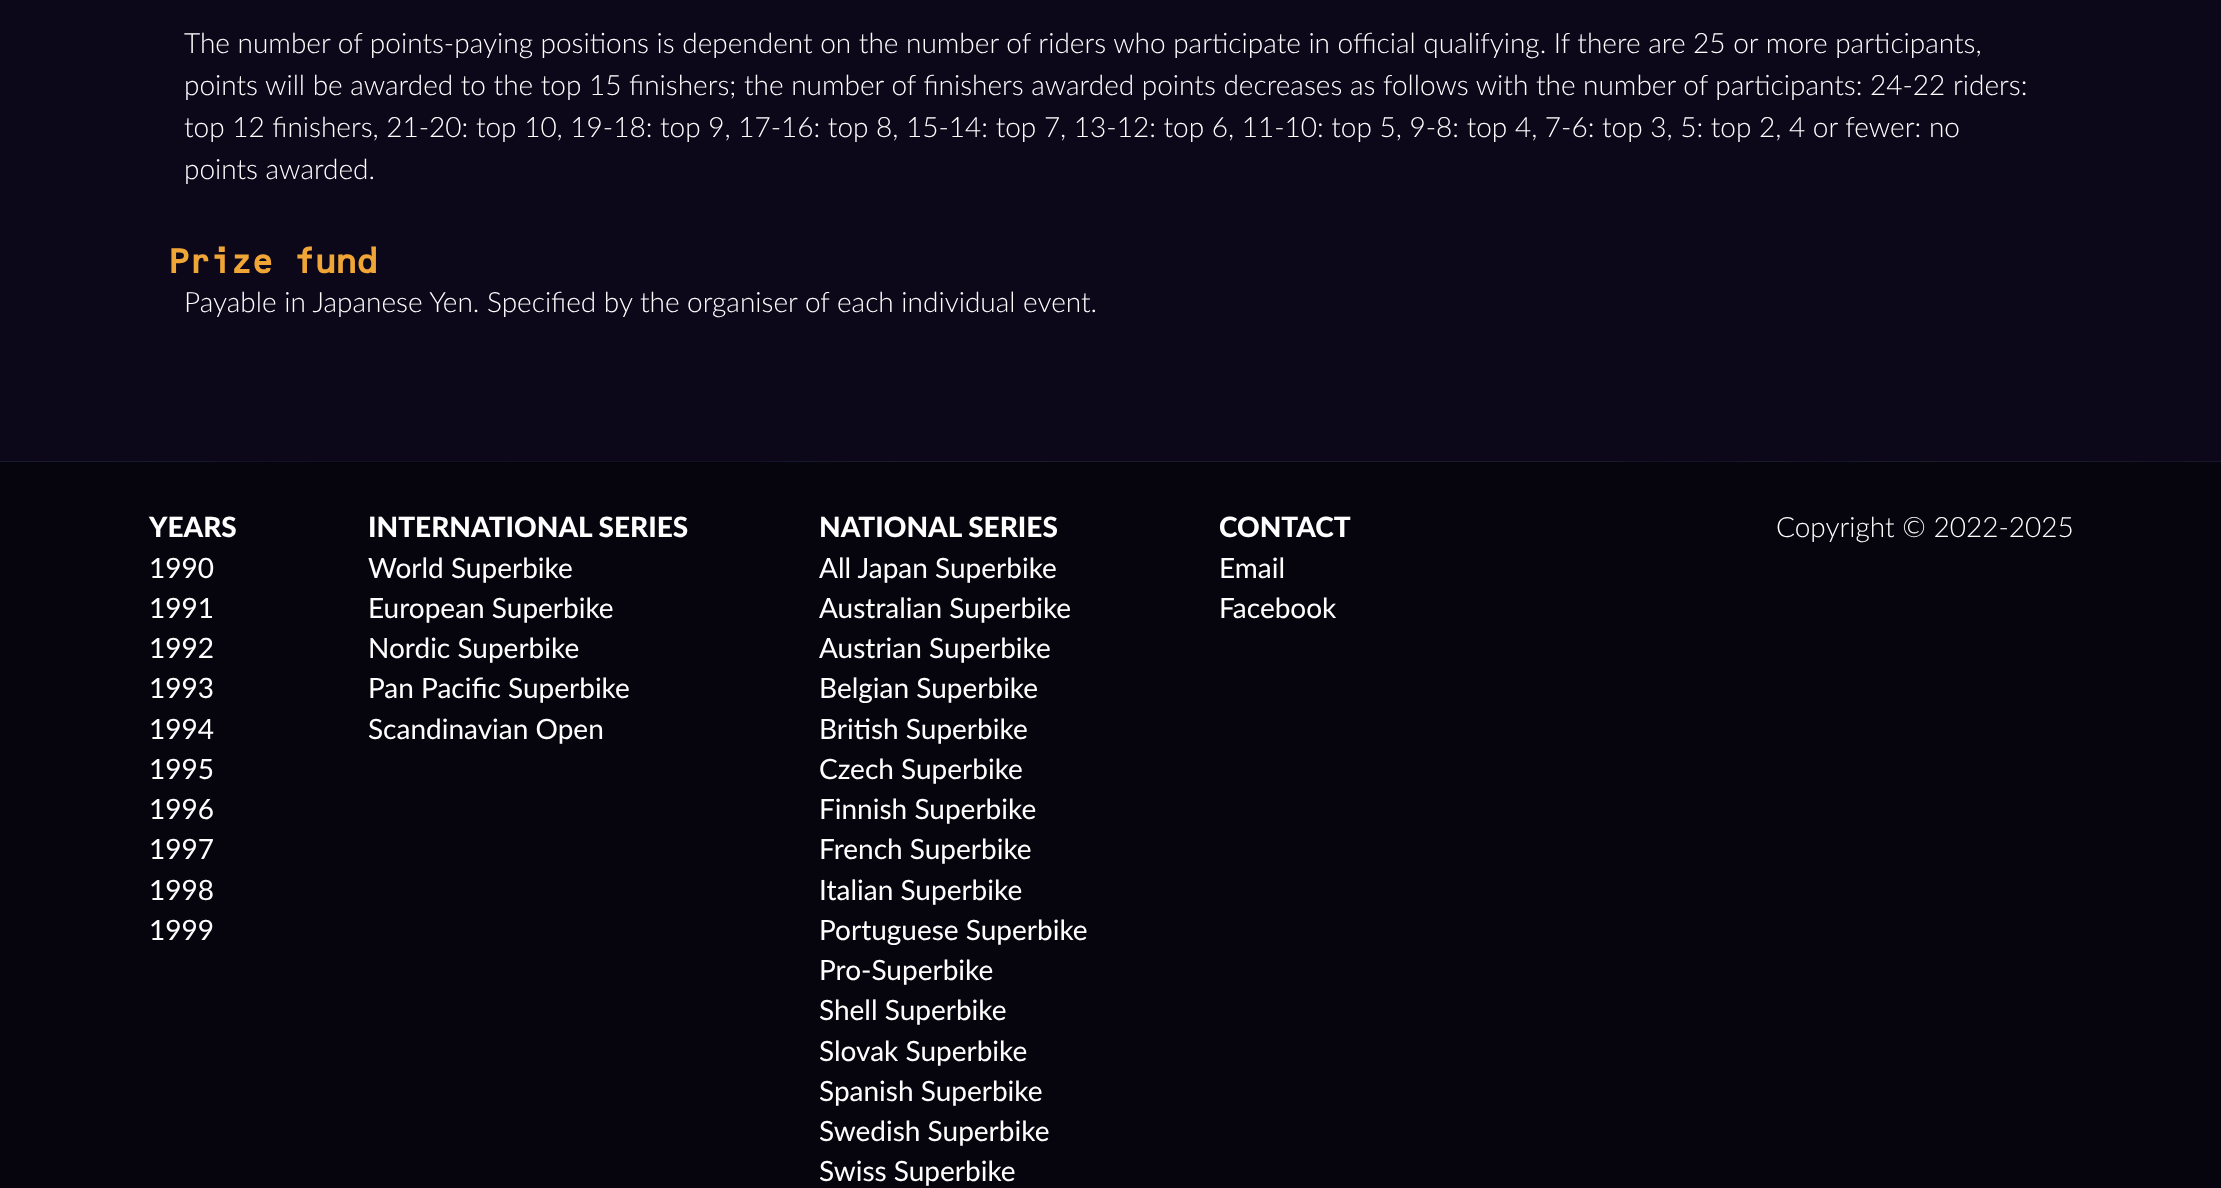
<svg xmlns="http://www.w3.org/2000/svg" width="2221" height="1188">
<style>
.a{font:300 28px Lato;fill:#fff}
.b{font:bold 35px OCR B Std;letter-spacing:-4.25px;fill:#f0a637}
.c{font:900 28px Lato;fill:#fff}
.d{font:28px Lato;fill:#fff}
</style>
<rect width="100%" height="100%" fill="#0c081a"/>
<image href="1.png" x="0" y="461" width="2221" height="1"/>
<path fill="#06040d" d="M0 462h2221v726H0z"/>
<text class="a" x="184" y="53">The number of points-paying positions is dependent on the number of riders who participate in official qualifying. If there are 25 or more participants,</text>
<text class="a" x="184" y="95">points will be awarded to the top 15 finishers; the number of finishers awarded points decreases as follows with the number of participants: 24-22 riders:</text>
<text class="a" x="184" y="137">top 12 finishers, 21-20: top 10, 19-18: top 9, 17-16: top 8, 15-14: top 7, 13-12: top 6, 11-10: top 5, 9-8: top 4, 7-6: top 3, 5: top 2, 4 or fewer: no</text>
<text class="a" x="184" y="179">points awarded.</text>
<text class="b" x="166" y="273">Prize fund</text>
<text class="a" x="184" y="312">Payable in Japanese Yen. Specified by the organiser of each individual event.</text>
<text class="c" x="149" y="537">YEARS</text>
<text class="d" x="149" y="578">1990</text>
<text class="d" x="149" y="618">1991</text>
<text class="d" x="149" y="658">1992</text>
<text class="d" x="149" y="698">1993</text>
<text class="d" x="149" y="739">1994</text>
<text class="d" x="149" y="779">1995</text>
<text class="d" x="149" y="819">1996</text>
<text class="d" x="149" y="859">1997</text>
<text class="d" x="149" y="900">1998</text>
<text class="d" x="149" y="940">1999</text>
<text class="c" x="368" y="537">INTERNATIONAL SERIES</text>
<text class="d" x="368" y="578">World Superbike</text>
<text class="d" x="368" y="618">European Superbike</text>
<text class="d" x="368" y="658">Nordic Superbike</text>
<text class="d" x="368" y="698">Pan Pacific Superbike</text>
<text class="d" x="368" y="739">Scandinavian Open</text>
<text class="c" x="819" y="537">NATIONAL SERIES</text>
<text class="d" x="819" y="578">All Japan Superbike</text>
<text class="d" x="819" y="618">Australian Superbike</text>
<text class="d" x="819" y="658">Austrian Superbike</text>
<text class="d" x="819" y="698">Belgian Superbike</text>
<text class="d" x="819" y="739">British Superbike</text>
<text class="d" x="819" y="779">Czech Superbike</text>
<text class="d" x="819" y="819">Finnish Superbike</text>
<text class="d" x="819" y="859">French Superbike</text>
<text class="d" x="819" y="900">Italian Superbike</text>
<text class="d" x="819" y="940">Portuguese Superbike</text>
<text class="d" x="819" y="980">Pro-Superbike</text>
<text class="d" x="819" y="1020">Shell Superbike</text>
<text class="d" x="819" y="1061">Slovak Superbike</text>
<text class="d" x="819" y="1101">Spanish Superbike</text>
<text class="d" x="819" y="1141">Swedish Superbike</text>
<text class="d" x="819" y="1181">Swiss Superbike</text>
<text class="c" x="1219" y="537">CONTACT</text>
<text class="d" x="1219" y="578">Email</text>
<text class="d" x="1219" y="618">Facebook</text>
<text class="a" x="1776" y="537">Copyright © 2022-2025</text>
</svg>
